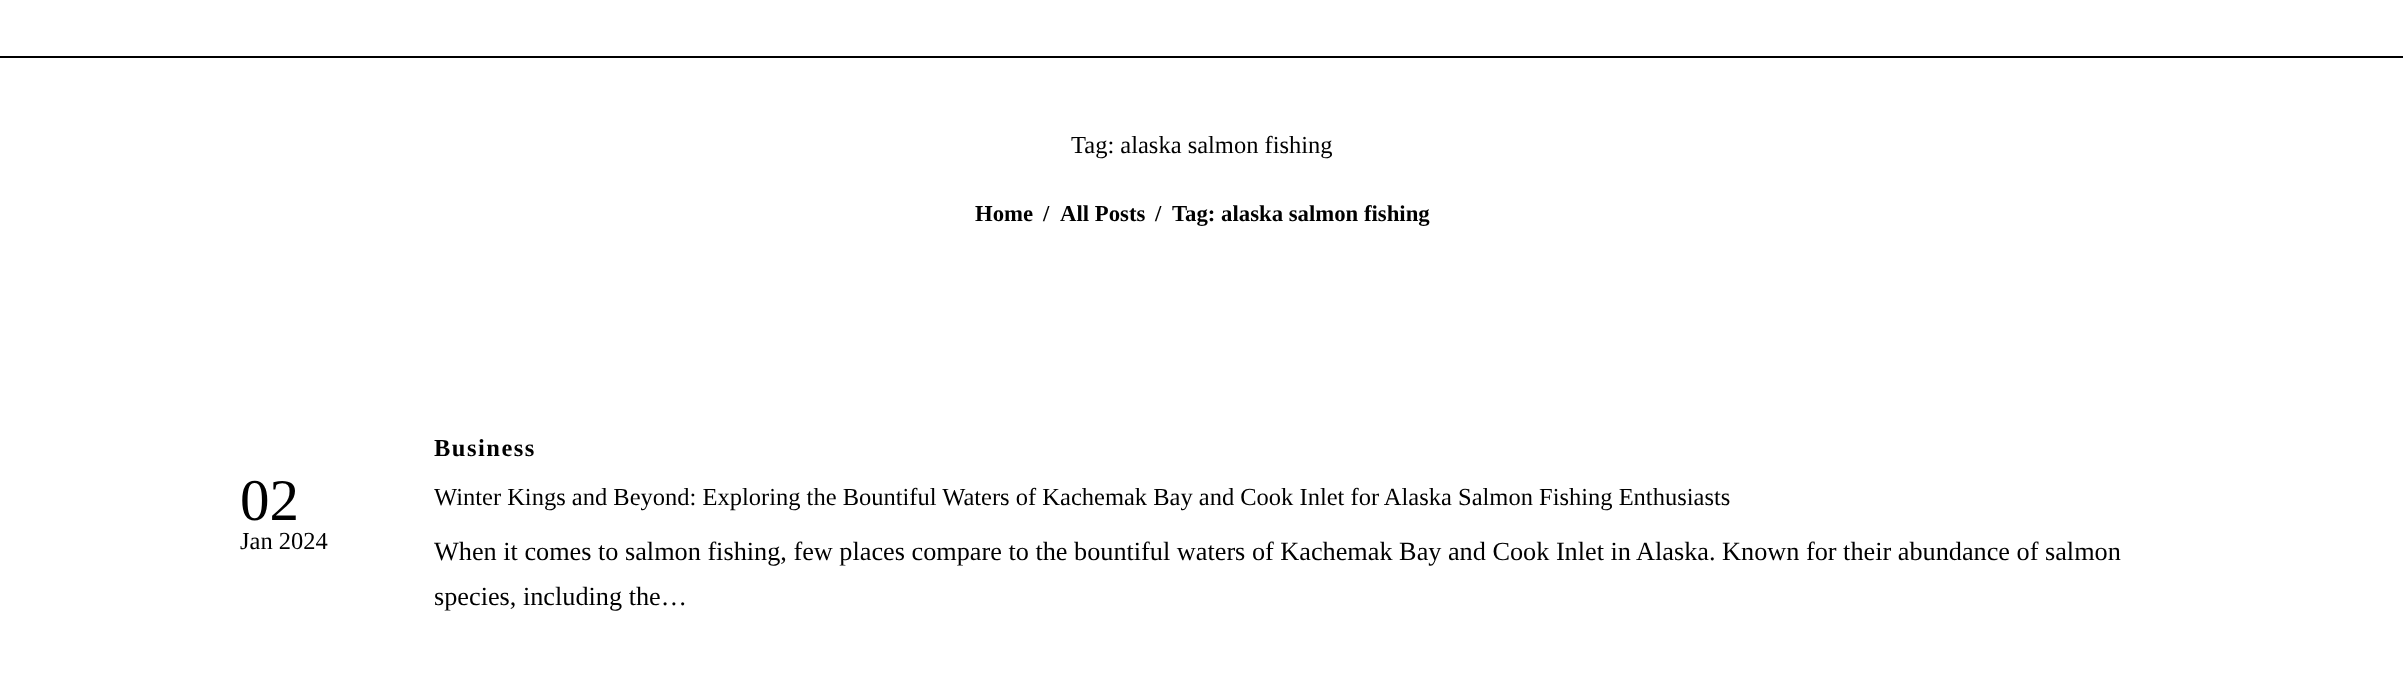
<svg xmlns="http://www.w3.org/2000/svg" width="2403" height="687">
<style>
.a{font:24.5px Liberation Serif;fill:#000}
.b{font:bold 22.75px Liberation Serif;fill:#000}
.c{font:59px Liberation Serif;fill:#000}
.d{font:bold 24.5px Liberation Serif;letter-spacing:1.5px;fill:#000}
.e{font:26.25px Liberation Serif;fill:#000}
</style>
<rect width="100%" height="100%" fill="#fff"/>
<path fill="#000" d="M0 56h2403v2H0z"/>
<text class="a" x="1071" y="153">Tag: alaska salmon fishing</text>
<text class="b" x="975" y="221">Home</text>
<text class="b" x="1043" y="221">/</text>
<text class="b" x="1060" y="221">All Posts</text>
<text class="b" x="1155" y="221">/</text>
<text class="b" x="1172" y="221">Tag: alaska salmon fishing</text>
<text class="c" x="240" y="520">02</text>
<text class="a" x="240" y="549">Jan 2024</text>
<text class="d" x="434" y="456">Business</text>
<text class="a" x="434" y="505">Winter Kings and Beyond: Exploring the Bountiful Waters of Kachemak Bay and Cook Inlet for Alaska Salmon Fishing Enthusiasts</text>
<text class="e" x="434" y="560">When it comes to salmon fishing, few places compare to the bountiful waters of Kachemak Bay and Cook Inlet in Alaska. Known for their abundance of salmon</text>
<text class="e" x="434" y="605">species, including the…</text>
</svg>
